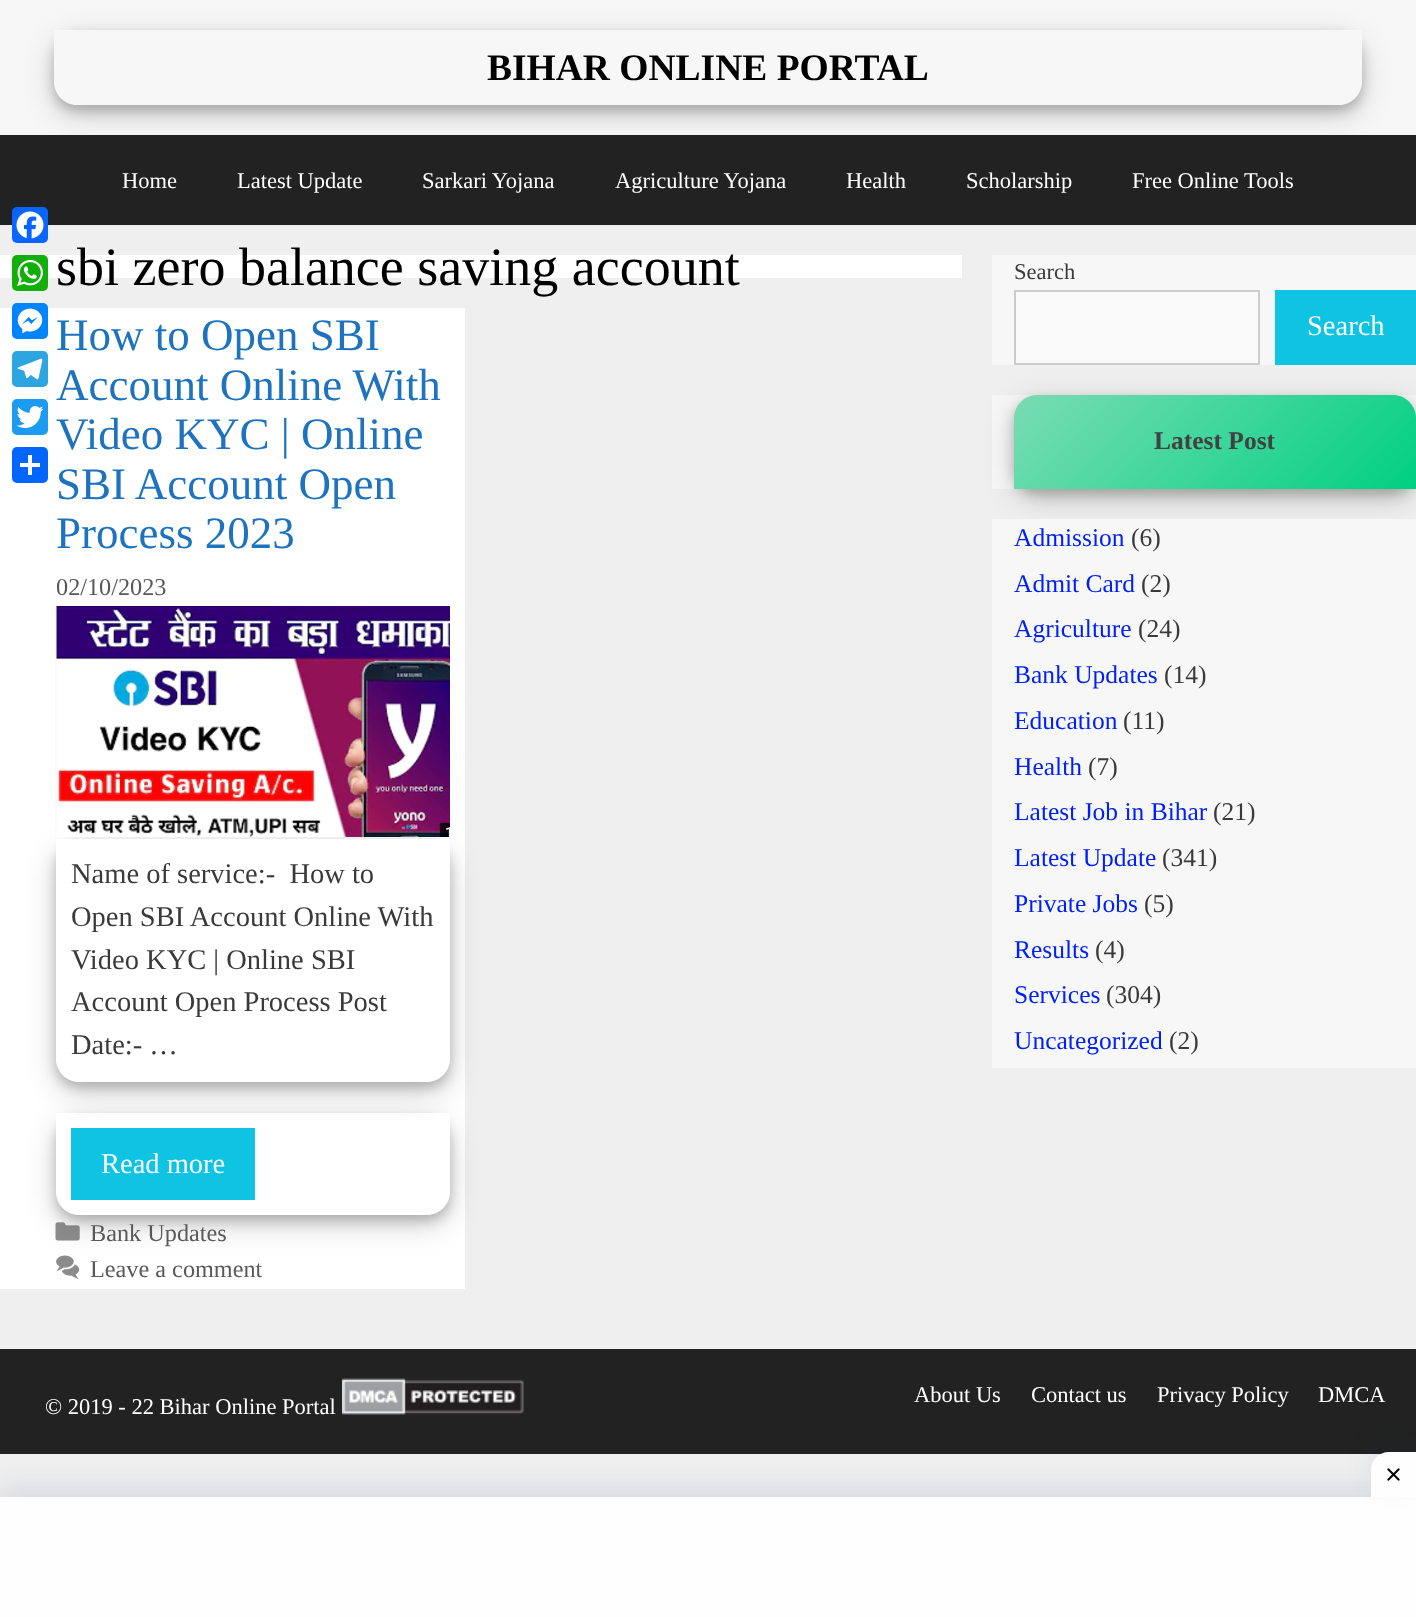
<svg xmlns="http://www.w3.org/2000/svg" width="1416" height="1617">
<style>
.a{font:bold 37.5px Liberation Serif;fill:#000}
.b{font:22.5px Liberation Serif;fill:#fff}
.c{font:54px Liberation Serif;fill:#000}
.d{font:45px Liberation Serif;fill:#1e73be}
.e{font:24.25px Liberation Serif;fill:#595959}
.f{font:28.5px Liberation Serif;fill:#3a3a3a}
.g{font:28.5px Liberation Serif;fill:#fff}
.h{font:22.5px Liberation Serif;fill:#3a3a3a}
.i{font:bold 25.5px Liberation Serif;fill:#424040}
.j{font:25.5px Liberation Serif;fill:#0021f5}
.k{font:25.5px Liberation Serif;fill:#3a3a3a}
</style>
<defs>
<clipPath id="clip1"><path d="M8 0h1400v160h-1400zm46 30h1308v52c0 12.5-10.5 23-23 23h-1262c-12.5 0-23-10.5-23-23z" clip-rule="evenodd"/></clipPath>
<clipPath id="clip2"><path d="M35 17h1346v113h-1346zm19 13h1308v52c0 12.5-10.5 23-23 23h-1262c-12.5 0-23-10.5-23-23z" clip-rule="evenodd"/></clipPath>
<clipPath id="clip3"><path d="M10 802h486v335h-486zm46 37h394v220c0 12.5-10.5 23-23 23h-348c-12.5 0-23-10.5-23-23z" clip-rule="evenodd"/></clipPath>
<clipPath id="clip4"><path d="M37 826h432v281h-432zm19 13h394v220c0 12.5-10.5 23-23 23h-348c-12.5 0-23-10.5-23-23z" clip-rule="evenodd"/></clipPath>
<clipPath id="clip5"><path d="M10 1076h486v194h-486zm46 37h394v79c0 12.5-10.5 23-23 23h-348c-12.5 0-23-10.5-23-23z" clip-rule="evenodd"/></clipPath>
<clipPath id="clip6"><path d="M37 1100h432v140h-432zm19 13h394v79c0 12.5-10.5 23-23 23h-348c-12.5 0-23-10.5-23-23z" clip-rule="evenodd"/></clipPath>
<linearGradient id="g1" gradientUnits="userSpaceOnUse" x1="1091" y1="318" x2="1339" y2="566"><stop offset="0" stop-color="#7adcb4"/><stop offset="1" stop-color="#00d082"/></linearGradient>
</defs>
<rect width="100%" height="100%" fill="#efefef"/>
<path fill="#f7f7f7" d="M0 0h1416v135H0z"/>
<path fill="#222" d="M0 135h1416v90H0z"/>
<g clip-path="url(#clip1)">
<rect fill="#00000030" filter="blur(15px)" x="54" y="39" width="1308" height="75" rx="23"/>
</g>
<g clip-path="url(#clip2)">
<rect fill="#00000033" filter="blur(6px)" x="54" y="36" width="1308" height="75" rx="23"/>
</g>
<rect fill="#0866ff" x="12" y="207" width="36" height="36" rx="5"/>
<image href="1.png" x="16" y="211" width="28" height="28"/>
<path fill="#fff" d="M0 255h962v23H0z"/>
<rect fill="#12af0a" x="12" y="255" width="36" height="36" rx="5"/>
<image href="2.png" x="17" y="260" width="26" height="26"/>
<path fill="#fff" d="M0 308h465v981H0z"/>
<rect fill="#0084ff" x="12" y="303" width="36" height="36" rx="5"/>
<image href="3.png" x="17" y="308" width="26" height="26"/>
<rect fill="#2ca5e0" x="12" y="351" width="36" height="36" rx="5"/>
<image href="4.png" x="17" y="358" width="26" height="22"/>
<rect fill="#1d9bf0" x="12" y="399" width="36" height="36" rx="5"/>
<image href="5.png" x="16" y="406" width="28" height="22"/>
<rect fill="#0166ff" x="12" y="447" width="36" height="36" rx="5"/>
<path fill="#fff" d="M28 455h4v20H28z"/>
<path fill="#fff" d="M20 463h20v4H20z"/>
<g clip-path="url(#clip3)">
<rect fill="#00000030" filter="blur(15px)" x="56" y="848" width="394" height="243" rx="23"/>
</g>
<g clip-path="url(#clip4)">
<rect fill="#00000033" filter="blur(6px)" x="56" y="845" width="394" height="243" rx="23"/>
</g>
<image href="6.png" x="55" y="606" width="395" height="231"/>
<g clip-path="url(#clip5)">
<rect fill="#00000030" filter="blur(15px)" x="56" y="1122" width="394" height="102" rx="23"/>
</g>
<g clip-path="url(#clip6)">
<rect fill="#00000033" filter="blur(6px)" x="56" y="1119" width="394" height="102" rx="23"/>
</g>
<path fill="#0ec4e2" d="M71 1128h184v72H71z"/>
<image href="7.png" x="55" y="1222" width="25" height="19"/>
<image href="8.png" x="56" y="1255" width="24" height="25"/>
<path fill="#f7f7f7" d="M992 255h424v110H992z"/>
<path fill="#f7f7f7" d="M992 395h424v94H992z"/>
<rect fill="#00000030" filter="blur(15px)" x="1014" y="404" width="402" height="94" rx="23"/>
<path fill="#fafafa" stroke="#ccc" stroke-width="2" d="M1015 291h244v73H1015z"/>
<path fill="#0ec4e2" d="M1275 290h141v75H1275z"/>
<rect fill="#00000033" filter="blur(6px)" x="1014" y="401" width="402" height="94" rx="23"/>
<path fill="url(#g1)" d="M1037 395h356c12.5 0 23 10.5 23 23v71h-402v-71c0-12.5 10.5-23 23-23z"/>
<path fill="#f7f7f7" d="M992 519h424v549H992z"/>
<path fill="#222" d="M0 1349h1416v105H0z"/>
<image href="9.png" x="342" y="1378" width="182" height="37"/>
<path fill="#09204c1a" filter="blur(13.5px)" d="M0 1488h1416v120H0z"/>
<path fill="#fefefe" d="M0 1497h1416v120H0z"/>
<rect fill="#09204c14" filter="blur(13.5px)" x="1371" y="1443" width="45" height="45" rx="18"/>
<path fill="#fefefe" d="M1389 1452h27v45h-45v-27c0-10 8-18 18-18z"/>
<image href="10.png" x="1387" y="1468" width="13" height="13"/>
<text class="a" x="487" y="80">BIHAR ONLINE PORTAL</text>
<text class="b" x="122" y="188">Home</text>
<text class="b" x="237" y="188">Latest Update</text>
<text class="b" x="422" y="188">Sarkari Yojana</text>
<text class="b" x="615" y="188">Agriculture Yojana</text>
<text class="b" x="846" y="188">Health</text>
<text class="b" x="966" y="188">Scholarship</text>
<text class="b" x="1132" y="188">Free Online Tools</text>
<text class="c" x="56" y="285">sbi zero balance saving account</text>
<text class="d" x="56" y="350">How to Open SBI</text>
<text class="d" x="56" y="400">Account Online With</text>
<text class="d" x="56" y="449">Video KYC | Online</text>
<text class="d" x="56" y="499">SBI Account Open</text>
<text class="d" x="56" y="548">Process 2023</text>
<text class="e" x="56" y="595">02/10/2023</text>
<text class="f" xml:space="preserve" x="71" y="883">Name of service:-  How to</text>
<text class="f" x="71" y="926">Open SBI Account Online With</text>
<text class="f" x="71" y="969">Video KYC | Online SBI</text>
<text class="f" x="71" y="1011">Account Open Process Post</text>
<text class="f" x="71" y="1054">Date:- …</text>
<text class="g" x="101" y="1173">Read more</text>
<text class="e" x="90" y="1241">Bank Updates</text>
<text class="e" x="90" y="1277">Leave a comment</text>
<text class="h" x="1014" y="279">Search</text>
<text class="g" x="1307" y="335">Search</text>
<text class="i" x="1154" y="449">Latest Post</text>
<text class="j" x="1014" y="546">Admission</text>
<text class="k" x="1131" y="546">(6)</text>
<text class="j" x="1014" y="592">Admit Card</text>
<text class="k" x="1141" y="592">(2)</text>
<text class="j" x="1014" y="637">Agriculture</text>
<text class="k" x="1138" y="637">(24)</text>
<text class="j" x="1014" y="683">Bank Updates</text>
<text class="k" x="1164" y="683">(14)</text>
<text class="j" x="1014" y="729">Education</text>
<text class="k" x="1123" y="729">(11)</text>
<text class="j" x="1014" y="775">Health</text>
<text class="k" x="1088" y="775">(7)</text>
<text class="j" x="1014" y="820">Latest Job in Bihar</text>
<text class="k" x="1213" y="820">(21)</text>
<text class="j" x="1014" y="866">Latest Update</text>
<text class="k" x="1162" y="866">(341)</text>
<text class="j" x="1014" y="912">Private Jobs</text>
<text class="k" x="1144" y="912">(5)</text>
<text class="j" x="1014" y="958">Results</text>
<text class="k" x="1095" y="958">(4)</text>
<text class="j" x="1014" y="1003">Services</text>
<text class="k" x="1106" y="1003">(304)</text>
<text class="j" x="1014" y="1049">Uncategorized</text>
<text class="k" x="1169" y="1049">(2)</text>
<text class="b" x="45" y="1414">© 2019 - 22 Bihar Online Portal</text>
<text class="b" x="914" y="1402">About Us</text>
<text class="b" x="1031" y="1402">Contact us</text>
<text class="b" x="1157" y="1402">Privacy Policy</text>
<text class="b" x="1318" y="1402">DMCA</text>
</svg>
